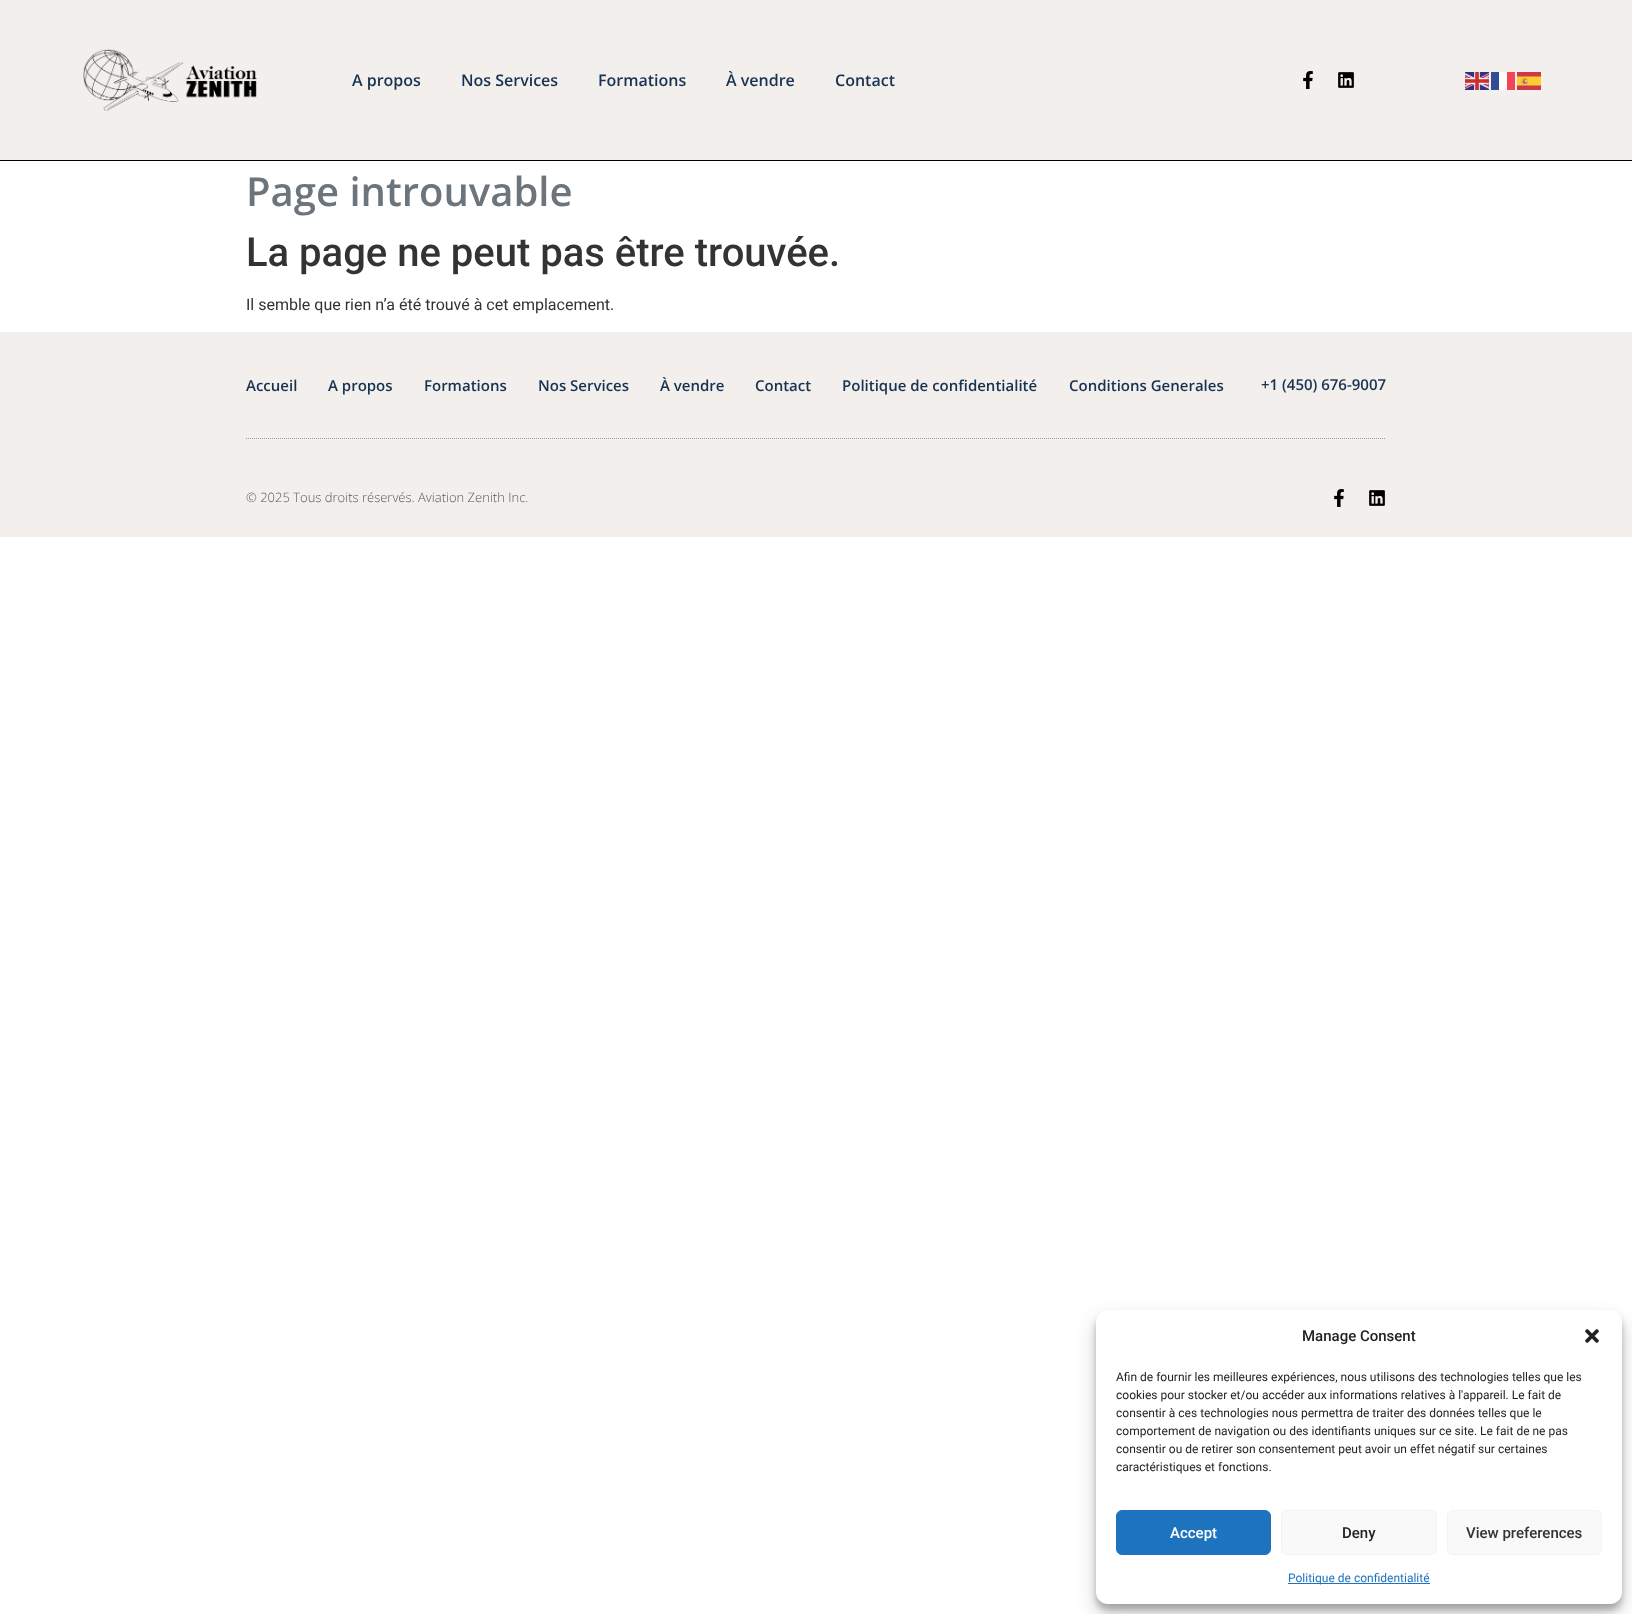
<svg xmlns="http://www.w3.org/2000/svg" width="1632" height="1614">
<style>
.a{font:600 16px Open Sans;fill:#183251}
.b{font:600 40px Open Sans;fill:#6c747c}
.c{font:500 40px Roboto;fill:#333}
.d{font:16px Roboto;fill:#333}
.e{font:600 15px Open Sans;fill:#183251}
.f{font:300 13px Open Sans;fill:#54595f}
.g{font:500 15px Roboto;fill:#222}
.h{font:12px Roboto;fill:#222}
.i{font:500 15px Roboto;fill:#fff}
.j{font:500 15px Roboto;fill:#333}
.k{font:12px Roboto;fill:#1e73be}
</style>
<rect width="100%" height="100%" fill="#fff"/>
<path fill="#f2efec" d="M0 0h1632v160H0z"/>
<path fill="#000" d="M0 160h1632v1H0z"/>
<image href="1.png" x="83" y="49" width="174" height="62"/>
<image href="2.png" x="1303" y="71" width="10" height="18"/>
<image href="3.png" x="1338" y="72" width="16" height="16"/>
<image href="4.png" x="1465" y="72" width="24" height="18"/>
<path fill="#304e95" d="M1491 72h8v18H1491z"/>
<path fill="#fcfcfb" d="M1499 72h8v18H1499z"/>
<path fill="#f34356" d="M1507 72h8v18H1507z"/>
<image href="5.png" x="1517" y="72" width="24" height="18"/>
<path fill="#f2efec" d="M0 332h1632v205H0z"/>
<path fill="none" stroke="#9b9b9b" stroke-dasharray="1 1" d="M246 438.5h1140"/>
<image href="2.png" x="1334" y="489" width="10" height="18"/>
<image href="3.png" x="1369" y="490" width="16" height="16"/>
<rect fill="#0000003b" filter="blur(3px)" x="1096" y="1316" width="526" height="294" rx="12"/>
<rect fill="#00000030" filter="blur(10px)" x="1096" y="1320" width="526" height="294" rx="12"/>
<rect fill="#fff" x="1096" y="1310" width="526" height="294" rx="12"/>
<image href="6.png" x="1585" y="1329" width="14" height="14"/>
<rect fill="#1e73be" stroke="#1e73be" x="1116.5" y="1510.5" width="154" height="44" rx="5.5"/>
<rect fill="#f9f9f9" stroke="#f2f2f2" x="1281.5" y="1510.5" width="155" height="44" rx="5.5"/>
<rect fill="#f9f9f9" stroke="#f2f2f2" x="1447.5" y="1510.5" width="154" height="44" rx="5.5"/>
<path fill="#1e73be" d="M1288 1583h142v1H1288z"/>
<text class="a" x="352" y="86">A propos</text>
<text class="a" x="461" y="86">Nos Services</text>
<text class="a" x="598" y="86">Formations</text>
<text class="a" x="726" y="86">À vendre</text>
<text class="a" x="835" y="86">Contact</text>
<text class="b" x="246" y="206">Page introuvable</text>
<text class="c" x="246" y="266">La page ne peut pas être trouvée.</text>
<text class="d" x="246" y="310">Il semble que rien n’a été trouvé à cet emplacement.</text>
<text class="e" x="246" y="391">Accueil</text>
<text class="e" x="328" y="391">A propos</text>
<text class="e" x="424" y="391">Formations</text>
<text class="e" x="538" y="391">Nos Services</text>
<text class="e" x="660" y="391">À vendre</text>
<text class="e" x="755" y="391">Contact</text>
<text class="e" x="842" y="391">Politique de confidentialité</text>
<text class="e" x="1069" y="391">Conditions Generales</text>
<text class="e" x="1261" y="390">+1 (450) 676-9007</text>
<text class="f" x="246" y="502">© 2025 Tous droits réservés. Aviation Zenith Inc.</text>
<text class="g" x="1302" y="1341">Manage Consent</text>
<text class="h" x="1116" y="1381">Afin de fournir les meilleures expériences, nous utilisons des technologies telles que les</text>
<text class="h" x="1116" y="1399">cookies pour stocker et/ou accéder aux informations relatives à l'appareil. Le fait de</text>
<text class="h" x="1116" y="1417">consentir à ces technologies nous permettra de traiter des données telles que le</text>
<text class="h" x="1116" y="1435">comportement de navigation ou des identifiants uniques sur ce site. Le fait de ne pas</text>
<text class="h" x="1116" y="1453">consentir ou de retirer son consentement peut avoir un effet négatif sur certaines</text>
<text class="h" x="1116" y="1471">caractéristiques et fonctions.</text>
<text class="i" x="1170" y="1538">Accept</text>
<text class="g" x="1342" y="1538">Deny</text>
<text class="j" x="1466" y="1538">View preferences</text>
<text class="k" x="1288" y="1582">Politique de confidentialité</text>
</svg>
